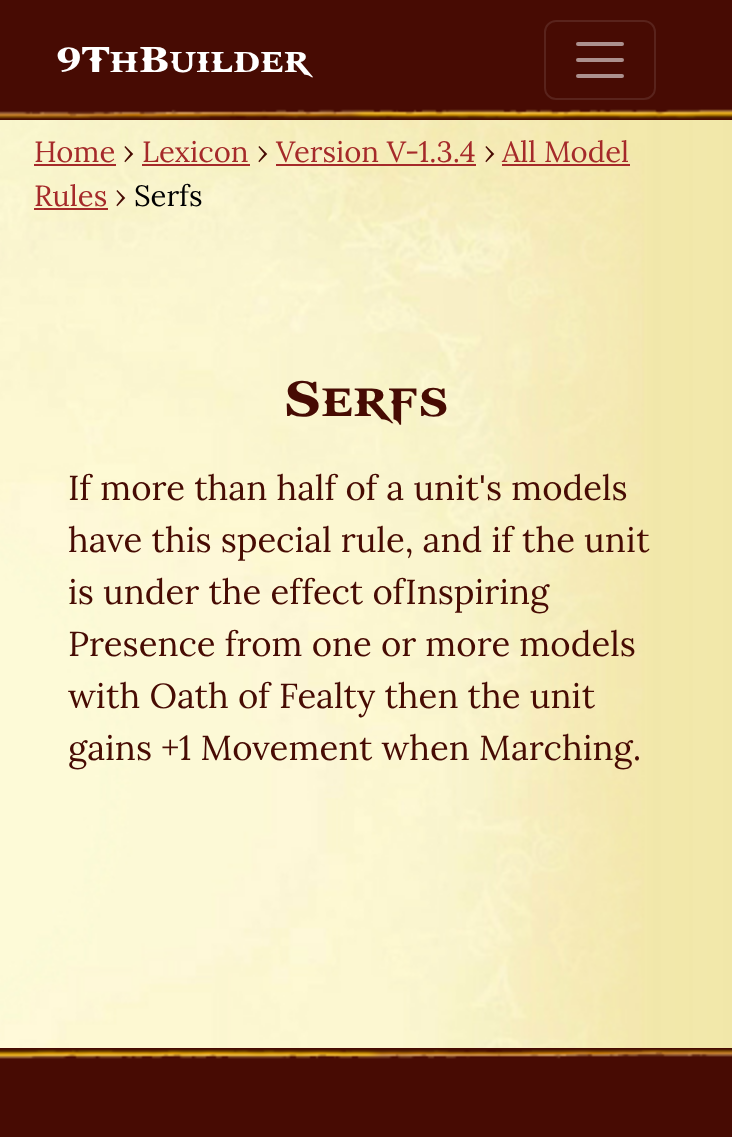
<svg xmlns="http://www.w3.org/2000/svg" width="732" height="1137">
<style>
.a{font:40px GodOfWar;fill:#fff}
.b{font:29.25px Lora;fill:#a52a2a}
.c{font:29.25px Lora;fill:#470b03}
.d{font:29.25px Lora;fill:#000}
.e{font:55px GodOfWar;fill:#470b03}
.f{font:34.7px Lora;fill:#470b03}
</style>
<rect width="100%" height="100%" fill="#fff"/>
<image href="1.png" x="0" y="120" width="732" height="928"/>
<path fill="#470b03" d="M0 0h732v120H0z"/>
<image href="2.png" x="0" y="109" width="732" height="10"/>
<rect fill="none" stroke="#59231c" stroke-width="2" x="545" y="21" width="110" height="78" rx="11"/>
<path fill="none" stroke="#ac918e" stroke-width="4" stroke-linecap="round" d="M578 44h44m-44 16h44m-44 16h44"/>
<path fill="#a52a2a" d="M34 164h82v2H34z"/>
<path fill="#a52a2a" d="M142 164h108v2H142z"/>
<path fill="#a52a2a" d="M276 164h200v2H276z"/>
<path fill="#a52a2a" d="M502 164h128v2H502z"/>
<path fill="#a52a2a" d="M34 208h74v2H34z"/>
<path fill="#470b03" d="M0 1048h732v89H0z"/>
<image href="3.png" x="0" y="1049" width="732" height="10"/>
<text class="a" x="56" y="72">9ThBuilder</text>
<text class="b" x="34" y="162">Home</text>
<text class="c" x="123" y="162">›</text>
<text class="b" x="142" y="162">Lexicon</text>
<text class="c" x="257" y="162">›</text>
<text class="b" x="276" y="162">Version V-1.3.4</text>
<text class="c" x="484" y="162">›</text>
<text class="b" x="502" y="162">All Model</text>
<text class="b" x="34" y="206">Rules</text>
<text class="c" x="115" y="206">›</text>
<text class="d" x="134" y="206">Serfs</text>
<text class="e" x="285" y="416">Serfs</text>
<text class="f" x="68" y="500">If more than half of a unit's models</text>
<text class="f" x="68" y="552">have this special rule, and if the unit</text>
<text class="f" x="68" y="604">is under the effect ofInspiring</text>
<text class="f" x="68" y="656">Presence from one or more models</text>
<text class="f" x="68" y="708">with Oath of Fealty then the unit</text>
<text class="f" x="68" y="760">gains +1 Movement when Marching.</text>
</svg>
